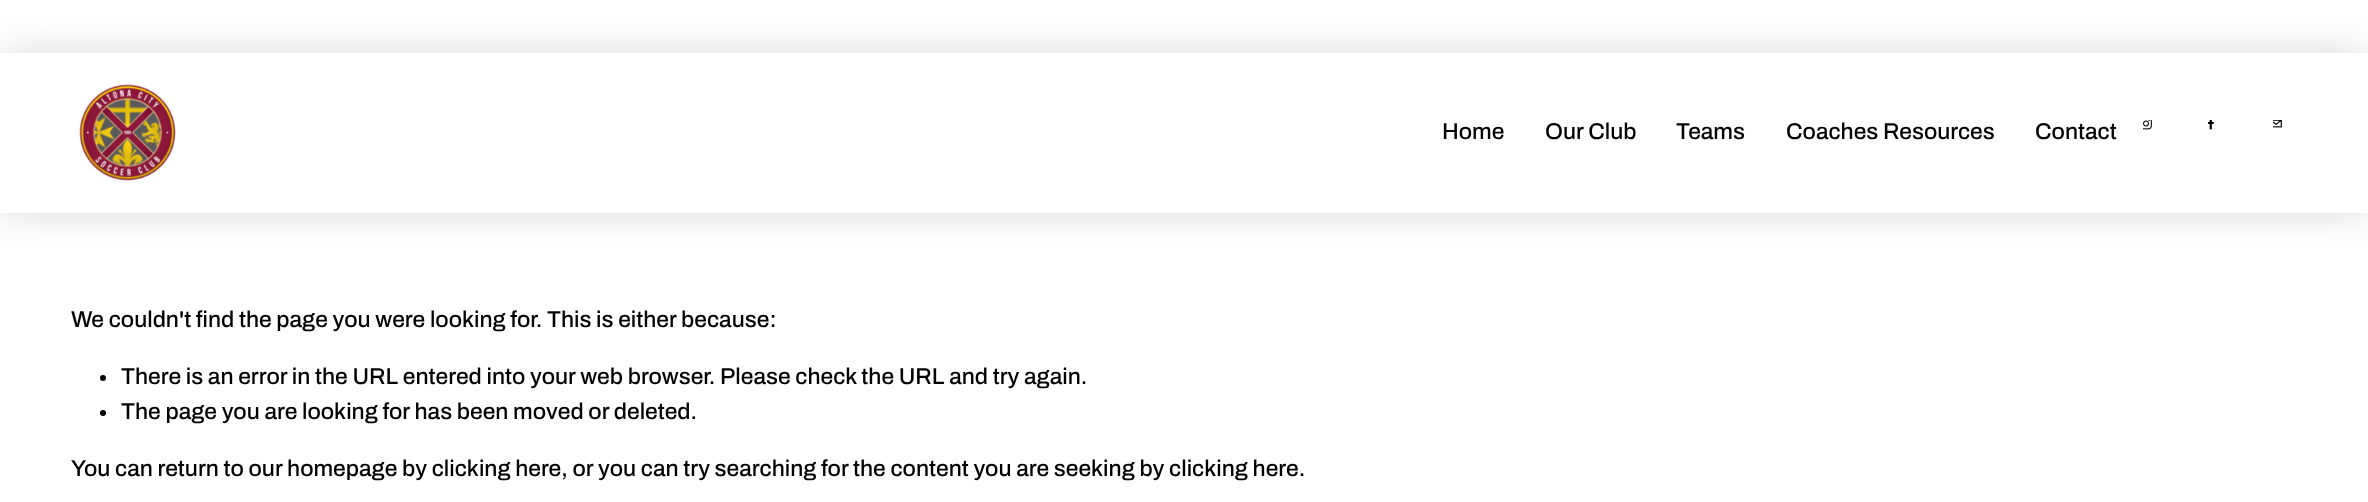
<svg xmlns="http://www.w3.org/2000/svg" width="2368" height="502">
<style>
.a{font:500 22.85px Archivo;fill:#000}
</style>
<rect width="100%" height="100%" fill="#fff"/>
<path fill="#d9d9d9" filter="blur(19px)" d="M0 53h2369v160H0z"/>
<path fill="#fff" d="M0 53h2368v160H0z"/>
<image href="1.png" x="79" y="84" width="97" height="97"/>
<image href="2.png" x="2143" y="120" width="9" height="10"/>
<image href="3.png" x="2208" y="120" width="6" height="10"/>
<image href="4.png" x="2273" y="120" width="9" height="8"/>
<circle fill="#000" cx="103" cy="378" r="3"/>
<circle fill="#000" cx="103" cy="413" r="3"/>
<text class="a" x="1442" y="139">Home</text>
<text class="a" x="1545" y="139">Our Club</text>
<text class="a" x="1676" y="139">Teams</text>
<text class="a" x="1786" y="139">Coaches Resources</text>
<text class="a" x="2035" y="139">Contact</text>
<text class="a" x="71" y="327">We couldn't find the page you were looking for. This is either because:</text>
<text class="a" x="121" y="384">There is an error in the URL entered into your web browser. Please check the URL and try again.</text>
<text class="a" x="121" y="419">The page you are looking for has been moved or deleted.</text>
<text class="a" x="71" y="476">You can return to our homepage by clicking here, or you can try searching for the content you are seeking by clicking here.</text>
</svg>
